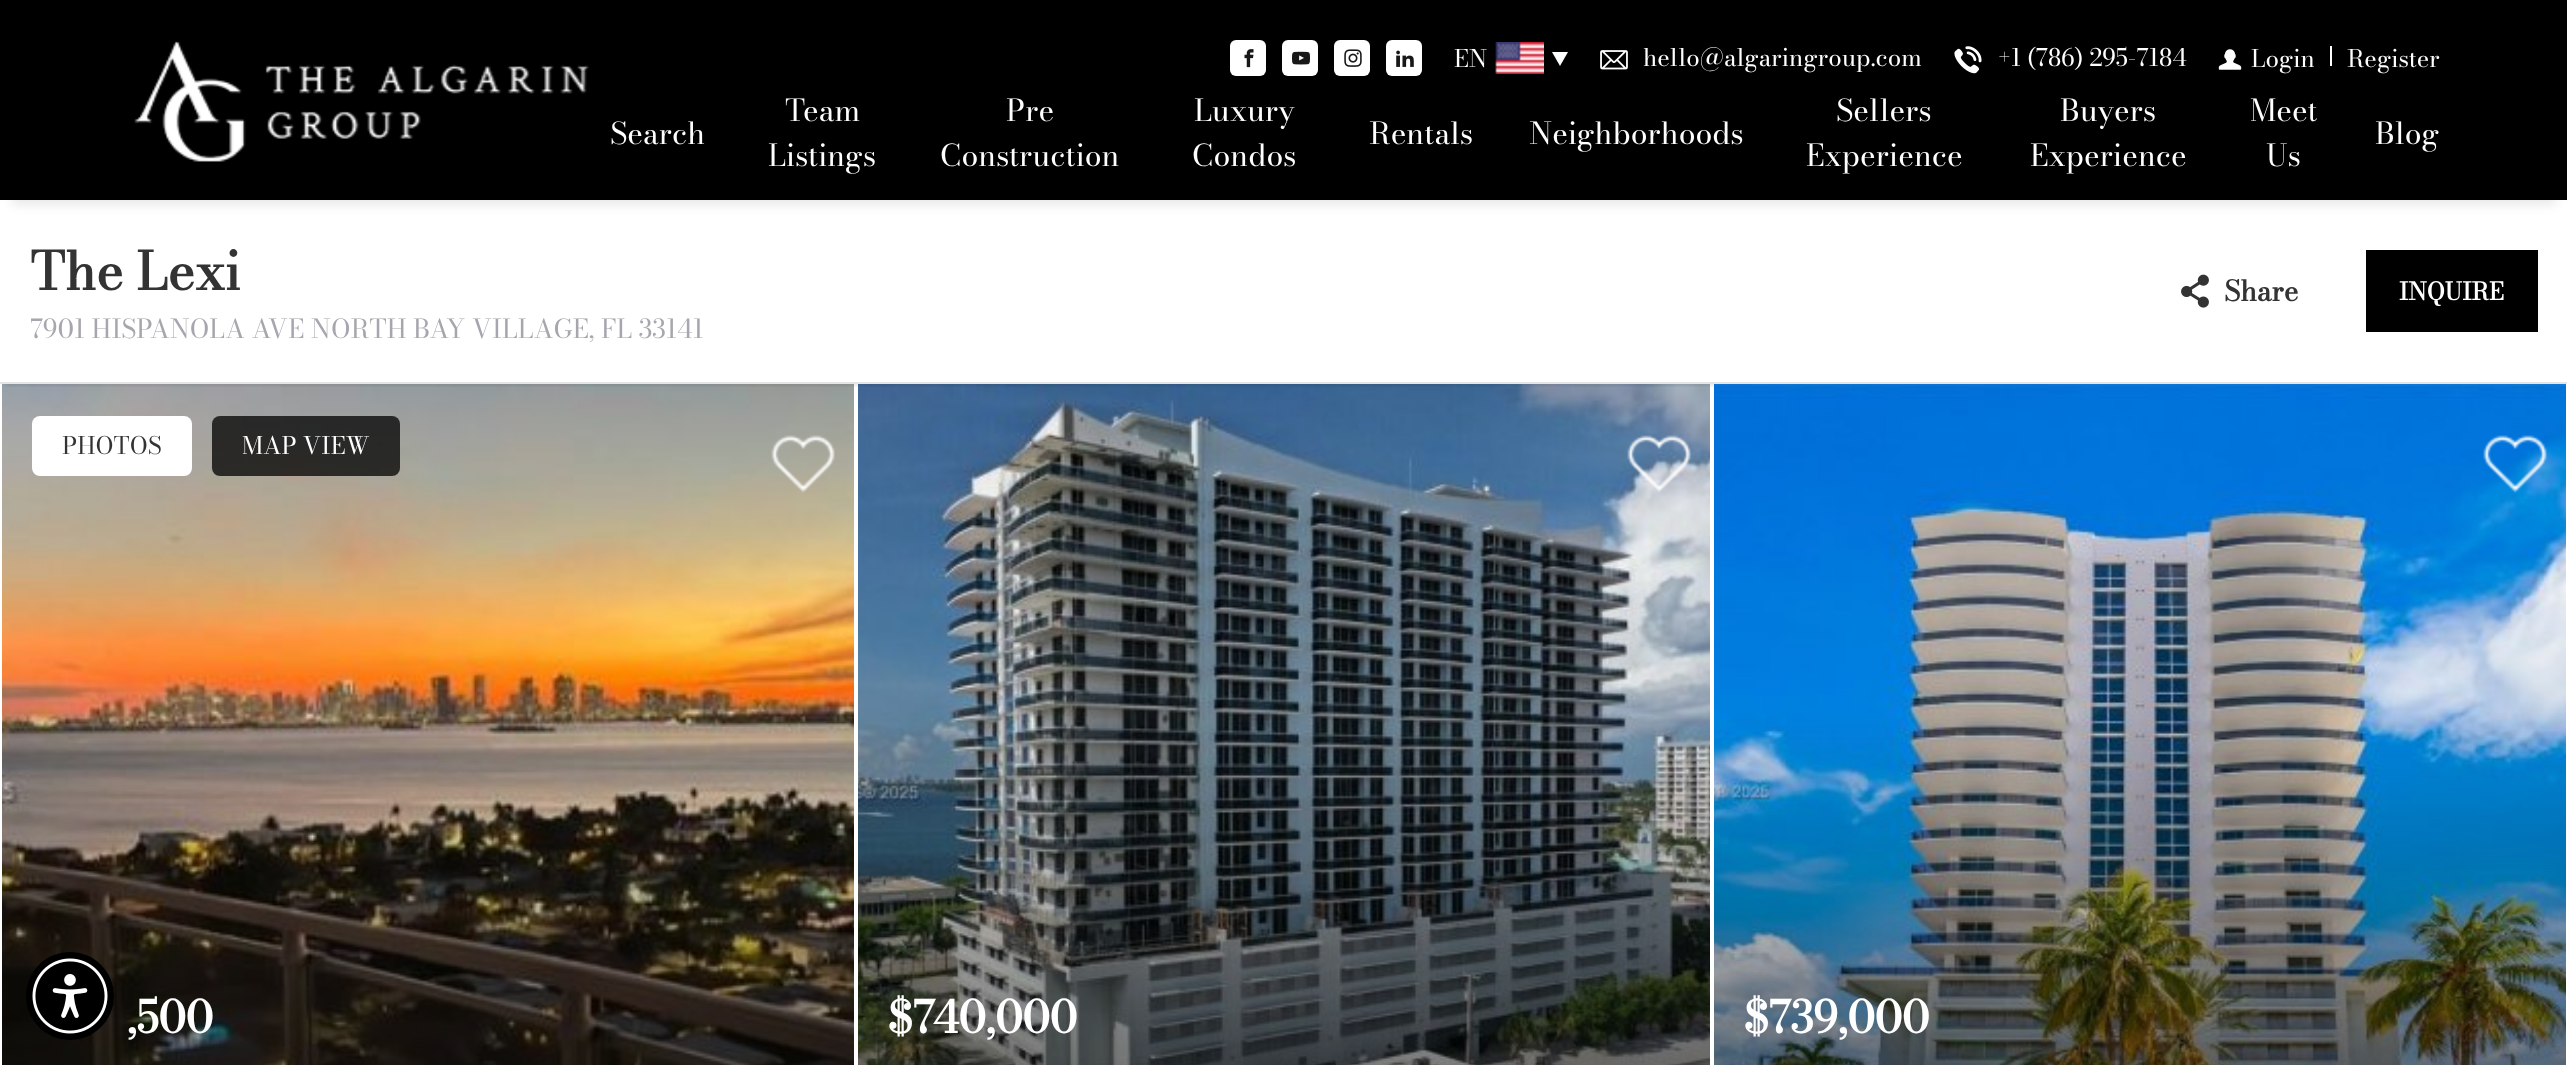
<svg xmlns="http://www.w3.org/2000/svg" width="2567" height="1065">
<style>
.a{font:24px Bodoni Moda;fill:#fff}
.b{font:30px Bodoni Moda;fill:#fff}
.c{font:bold 52px Bodoni Moda;fill:#333}
.d{font:26px Bodoni Moda;fill:#a7a6ae}
.e{font:bold 28px Bodoni Moda;fill:#333}
.f{font:bold 24px Bodoni Moda;fill:#fff}
.g{font:24px Bodoni Moda;fill:#333}
.h{font:bold 44px Bodoni Moda;fill:#fff}
</style>
<defs>
<clipPath id="clip1"><path d="M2 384h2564v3H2z"/></clipPath>
</defs>
<rect width="100%" height="100%" fill="#fff"/>
<path fill="#0000001a" filter="blur(6px)" d="M12 28h2544v176H12z"/>
<image href="11.png" x="2" y="384" width="852" height="681"/>
<image href="13.png" x="858" y="384" width="852" height="681"/>
<image href="15.png" x="1714" y="384" width="852" height="681"/>
<g clip-path="url(#clip1)">
<path fill="#00000029" filter="blur(3px)" d="M4 208h2560v176H4z"/>
</g>
<path fill="#000" d="M0 0h2567v200H0z"/>
<rect fill="#fff" x="1230" y="40" width="36" height="36" rx="6"/>
<image href="1.png" x="1244" y="49" width="10" height="19"/>
<rect fill="#fff" x="1282" y="40" width="36" height="36" rx="6"/>
<image href="2.png" x="1292" y="51" width="18" height="14"/>
<rect fill="#fff" x="1334" y="40" width="36" height="36" rx="6"/>
<image href="3.png" x="1344" y="49" width="18" height="18"/>
<rect fill="#fff" x="1386" y="40" width="36" height="36" rx="6"/>
<image href="4.png" x="1396" y="50" width="18" height="17"/>
<image href="5.png" x="1495" y="42" width="49" height="32"/>
<path fill="#fff" d="M1552 52h16l-8 14z"/>
<image href="6.png" x="1600" y="50" width="28" height="20"/>
<image href="7.png" x="1954" y="46" width="28" height="28"/>
<image href="8.png" x="2218" y="49" width="24" height="21"/>
<path fill="#fff" d="M2330 46h2v20H2330z"/>
<image href="9.png" x="134" y="41" width="455" height="121"/>
<path fill="#e5e5e5" d="M0 382h2567v2H0z"/>
<image href="10.png" x="2181" y="274" width="28" height="34"/>
<path fill="#000" d="M2366 250h172v82H2366z"/>
<rect fill="#fff" x="32" y="416" width="160" height="60" rx="8"/>
<rect fill="#000000bf" x="212" y="416" width="188" height="60" rx="8"/>
<image href="12.png" x="771" y="435" width="64" height="58"/>
<image href="14.png" x="1627" y="435" width="64" height="58"/>
<image href="16.png" x="2483" y="435" width="64" height="58"/>
<circle fill="#000" cx="70" cy="996" r="44"/>
<image href="17.png" x="32" y="958" width="76" height="76"/>
<text class="a" x="1454" y="67">EN</text>
<text class="a" x="1643" y="66">hello@algaringroup.com</text>
<text class="a" x="1998" y="66">+1 (786) 295-7184</text>
<text class="a" x="2251" y="67">Login</text>
<text class="a" x="2347" y="67">Register</text>
<text class="b" x="610" y="144">Search</text>
<text class="b" x="785" y="121">Team</text>
<text class="b" x="768" y="166">Listings</text>
<text class="b" x="1006" y="121">Pre</text>
<text class="b" x="940" y="166">Construction</text>
<text class="b" x="1194" y="121">Luxury</text>
<text class="b" x="1192" y="166">Condos</text>
<text class="b" x="1369" y="144">Rentals</text>
<text class="b" x="1529" y="144">Neighborhoods</text>
<text class="b" x="1836" y="121">Sellers</text>
<text class="b" x="1806" y="166">Experience</text>
<text class="b" x="2060" y="121">Buyers</text>
<text class="b" x="2030" y="166">Experience</text>
<text class="b" x="2250" y="121">Meet</text>
<text class="b" x="2266" y="166">Us</text>
<text class="b" x="2375" y="144">Blog</text>
<text class="c" x="30" y="290">The Lexi</text>
<text class="d" x="30" y="338">7901 HISPANOLA AVE NORTH BAY VILLAGE, FL 33141</text>
<text class="e" x="2224" y="301">Share</text>
<text class="f" x="2399" y="300">INQUIRE</text>
<text class="g" x="62" y="454">PHOTOS</text>
<text class="a" x="242" y="454">MAP VIEW</text>
<text class="h" x="127" y="1033">,500</text>
<text class="h" x="888" y="1033">$740,000</text>
<text class="h" x="1744" y="1033">$739,000</text>
</svg>
